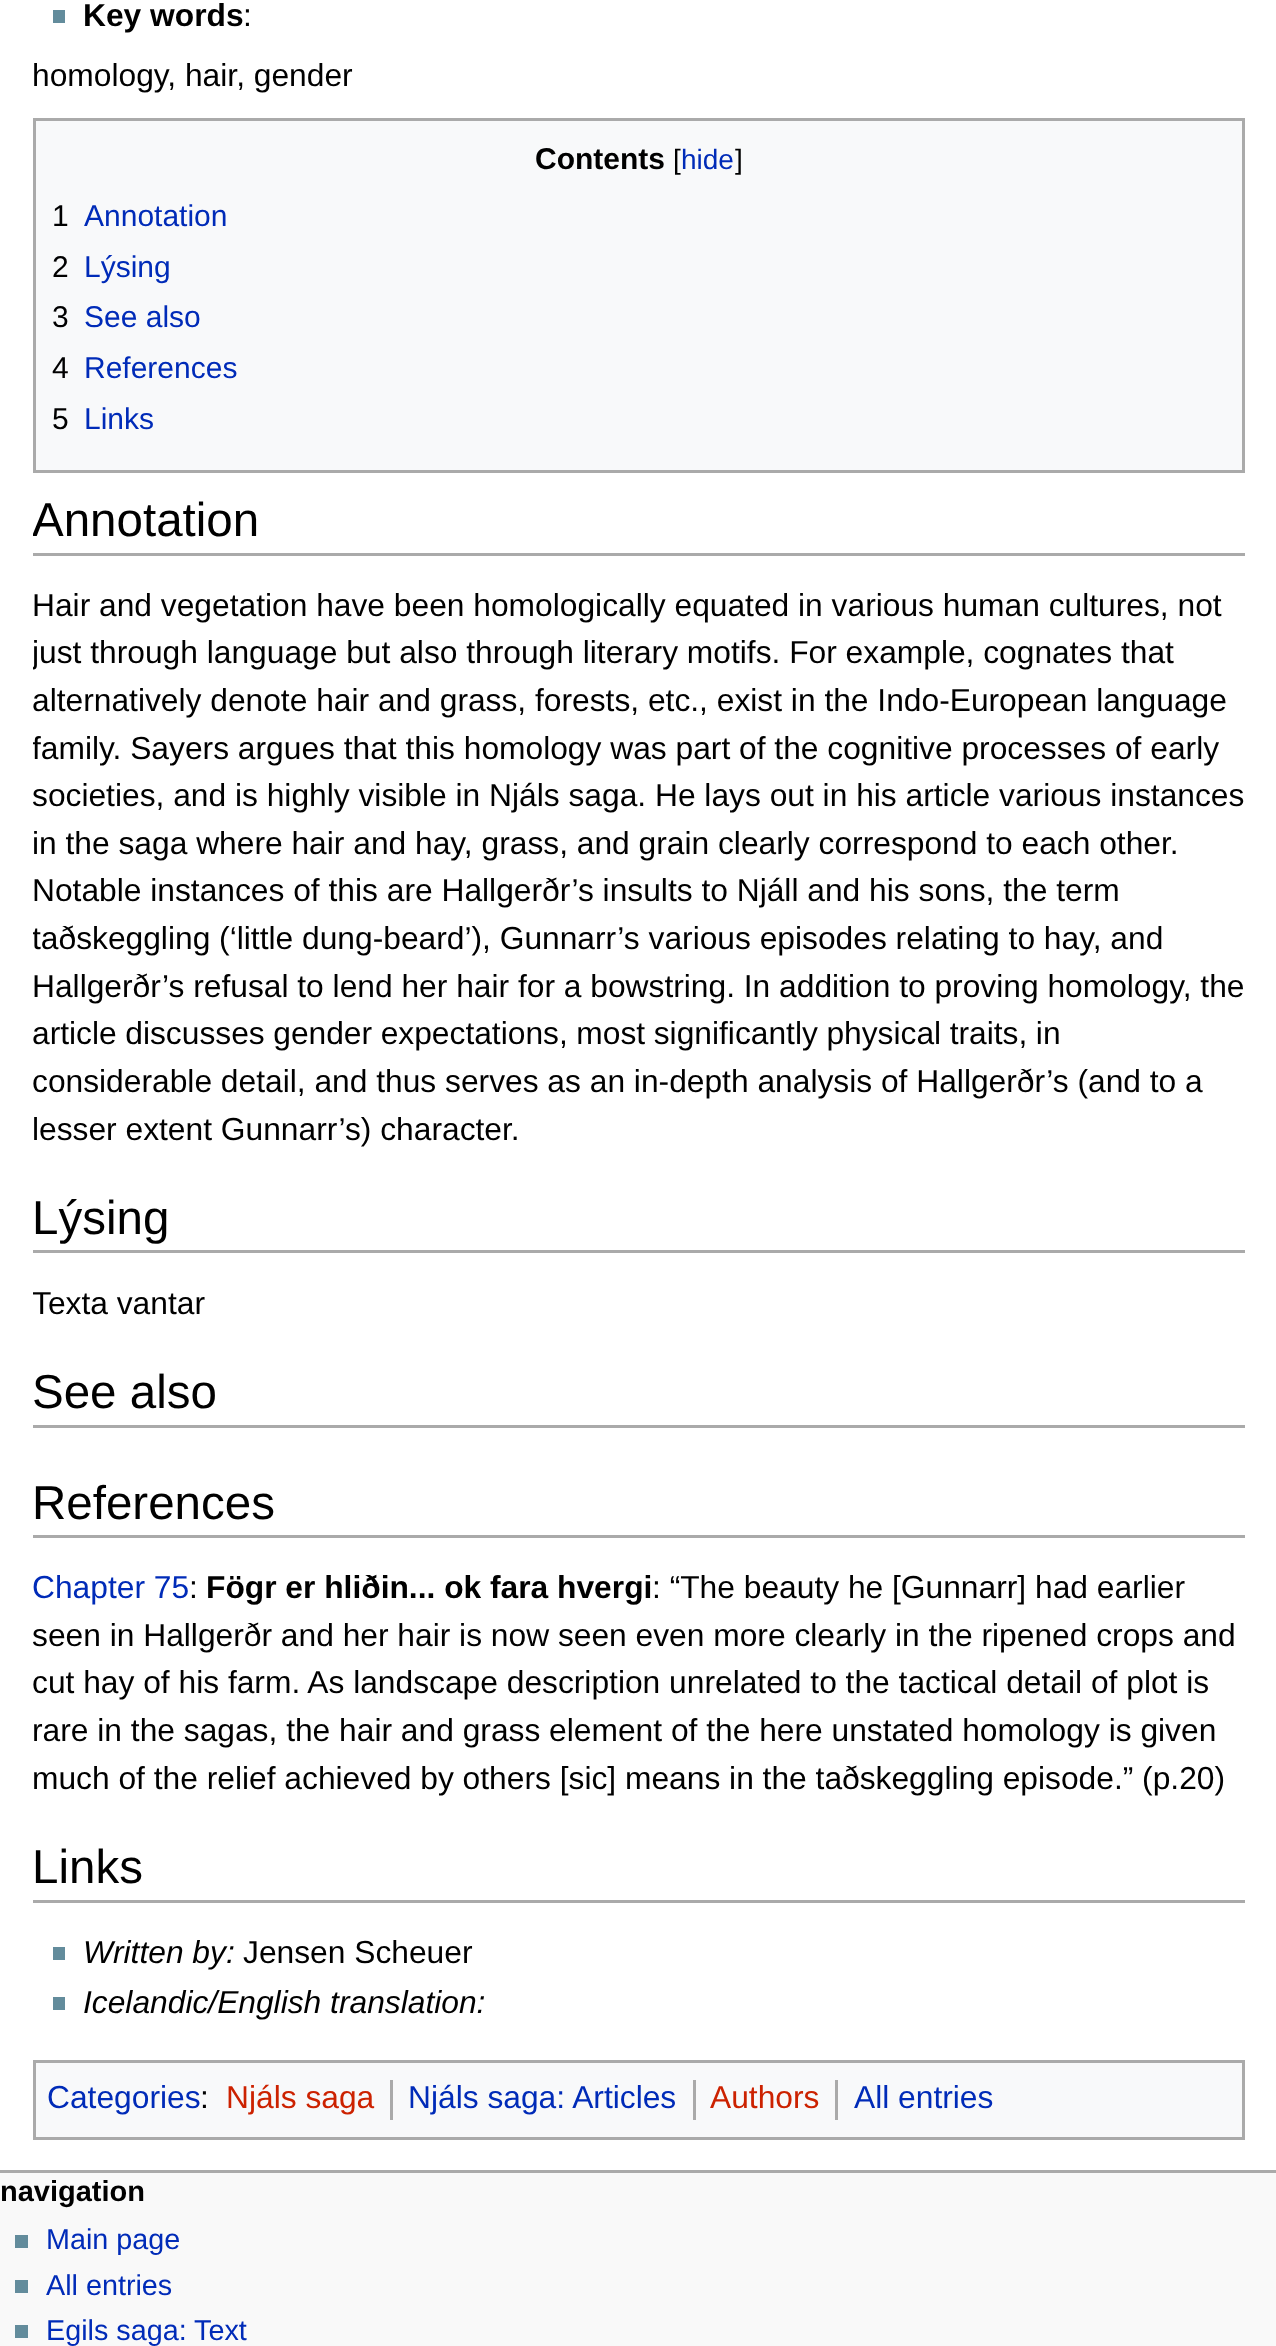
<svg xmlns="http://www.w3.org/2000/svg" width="1276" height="2346">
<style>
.a{font:bold 31.75px Liberation Sans;fill:#000}
.b{font:31.75px Liberation Sans;fill:#000}
.c{font:bold 30px Liberation Sans;fill:#000}
.d{font:28px Liberation Sans;fill:#000}
.e{font:28px Liberation Sans;fill:#002bb8}
.f{font:30px Liberation Sans;fill:#000}
.g{font:30px Liberation Sans;fill:#002bb8}
.h{font:47.5px Liberation Sans;fill:#000}
.i{font:31.75px Liberation Sans;fill:#002bb8}
.j{font:italic 31.75px Liberation Sans;fill:#000}
.k{font:31.75px Liberation Sans;fill:#c20}
.l{font:bold 29px Liberation Sans;fill:#000}
.m{font:28.75px Liberation Sans;fill:#002bb8}
</style>
<defs>
<clipPath id="clip1"><path d="M33 473h1212v80H33z"/></clipPath>
<clipPath id="clip2"><path d="M33 0h1212v2140H33z"/></clipPath>
</defs>
<rect width="100%" height="100%" fill="#f9f9f9"/>
<path fill="#fff" d="M0 0h1276v2170H0z"/>
<path fill="#aaa" d="M0 2170h1276v3H0z"/>
<path fill="#638c9c" d="M53 10h12v13H53z"/>
<path fill="#f8f9fa" stroke="#aaa" stroke-width="3" d="M34.5 119.5h1209v352H34.5z"/>
<path fill="#aaa" d="M33 553h1212v3H33z"/>
<path fill="#aaa" d="M33 1250h1212v3H33z"/>
<path fill="#aaa" d="M33 1425h1212v3H33z"/>
<path fill="#aaa" d="M33 1535h1212v3H33z"/>
<path fill="#aaa" d="M33 1900h1212v3H33z"/>
<path fill="#638c9c" d="M53 1947h12v13H53z"/>
<path fill="#638c9c" d="M53 1997h12v13H53z"/>
<path fill="#f8f9fa" stroke="#aaa" stroke-width="3" d="M34.5 2061.5h1209v77H34.5z"/>
<path fill="#aaa" d="M390 2080h3v40H390z"/>
<path fill="#aaa" d="M693 2080h3v40H693z"/>
<path fill="#aaa" d="M835 2080h3v40H835z"/>
<path fill="#638c9c" d="M15 2235h13v13H15z"/>
<path fill="#638c9c" d="M15 2280h13v13H15z"/>
<path fill="#638c9c" d="M15 2325h13v13H15z"/>
<text class="a" x="83" y="26">Key words</text>
<text class="b" x="243" y="26">:</text>
<text class="b" x="32" y="86">homology, hair, gender</text>
<text class="c" x="535" y="169">Contents</text>
<text class="d" x="673" y="169">[</text>
<text class="e" x="681" y="169">hide</text>
<text class="d" x="735" y="169">]</text>
<text class="f" x="52" y="226">1</text>
<text class="g" x="84" y="226">Annotation</text>
<text class="f" x="52" y="277">2</text>
<text class="g" x="84" y="277">Lýsing</text>
<text class="f" x="52" y="327">3</text>
<text class="g" x="84" y="327">See also</text>
<text class="f" x="52" y="378">4</text>
<text class="g" x="84" y="378">References</text>
<text class="f" x="52" y="429">5</text>
<text class="g" x="84" y="429">Links</text>
<g clip-path="url(#clip1)">
<text class="h" x="32" y="536">Annotation</text>
</g>
<text class="b" x="32" y="616">Hair and vegetation have been homologically equated in various human cultures, not</text>
<g clip-path="url(#clip2)">
<text class="b" x="32" y="663">just through language but also through literary motifs. For example, cognates that</text>
</g>
<text class="b" x="32" y="711">alternatively denote hair and grass, forests, etc., exist in the Indo-European language</text>
<g clip-path="url(#clip2)">
<text class="b" x="32" y="759">family. Sayers argues that this homology was part of the cognitive processes of early</text>
</g>
<text class="b" x="32" y="806">societies, and is highly visible in Njáls saga. He lays out in his article various instances</text>
<text class="b" x="32" y="854">in the saga where hair and hay, grass, and grain clearly correspond to each other.</text>
<text class="b" x="32" y="901">Notable instances of this are Hallgerðr’s insults to Njáll and his sons, the term</text>
<g clip-path="url(#clip2)">
<text class="b" x="32" y="949">taðskeggling (‘little dung-beard’), Gunnarr’s various episodes relating to hay, and</text>
</g>
<text class="b" x="32" y="997">Hallgerðr’s refusal to lend her hair for a bowstring. In addition to proving homology, the</text>
<text class="b" x="32" y="1044" word-spacing="-0.25">article discusses gender expectations, most significantly physical traits, in</text>
<text class="b" x="32" y="1092">considerable detail, and thus serves as an in-depth analysis of Hallgerðr’s (and to a</text>
<text class="b" x="32" y="1140">lesser extent Gunnarr’s) character.</text>
<text class="h" x="32" y="1234">Lýsing</text>
<g clip-path="url(#clip2)">
<text class="b" x="32" y="1314">Texta vantar</text>
</g>
<text class="h" x="32" y="1408">See also</text>
<text class="h" x="32" y="1519">References</text>
<text class="i" x="32" y="1598">Chapter 75</text>
<text class="b" x="189" y="1598">:</text>
<text class="a" x="206" y="1598">Fögr er hliðin... ok fara hvergi</text>
<text class="b" x="652" y="1598">: “The beauty he [Gunnarr] had earlier</text>
<text class="b" x="32" y="1646">seen in Hallgerðr and her hair is now seen even more clearly in the ripened crops and</text>
<text class="b" x="32" y="1693">cut hay of his farm. As landscape description unrelated to the tactical detail of plot is</text>
<text class="b" x="32" y="1741">rare in the sagas, the hair and grass element of the here unstated homology is given</text>
<text class="b" x="32" y="1789">much of the relief achieved by others [sic] means in the taðskeggling episode.” (p.20)</text>
<text class="h" x="32" y="1883">Links</text>
<text class="j" x="83" y="1963">Written by:</text>
<text class="b" x="243" y="1963">Jensen Scheuer</text>
<text class="j" x="83" y="2013">Icelandic/English translation:</text>
<text class="i" x="47" y="2108">Categories</text>
<text class="b" x="200" y="2108">:</text>
<text class="k" x="226" y="2108">Njáls saga</text>
<text class="i" x="408" y="2108">Njáls saga: Articles</text>
<text class="k" x="710" y="2108">Authors</text>
<text class="i" x="854" y="2108">All entries</text>
<text class="l" x="0" y="2201">navigation</text>
<text class="m" x="46" y="2249">Main page</text>
<text class="m" x="46" y="2295">All entries</text>
<text class="m" x="46" y="2340">Egils saga: Text</text>
</svg>
